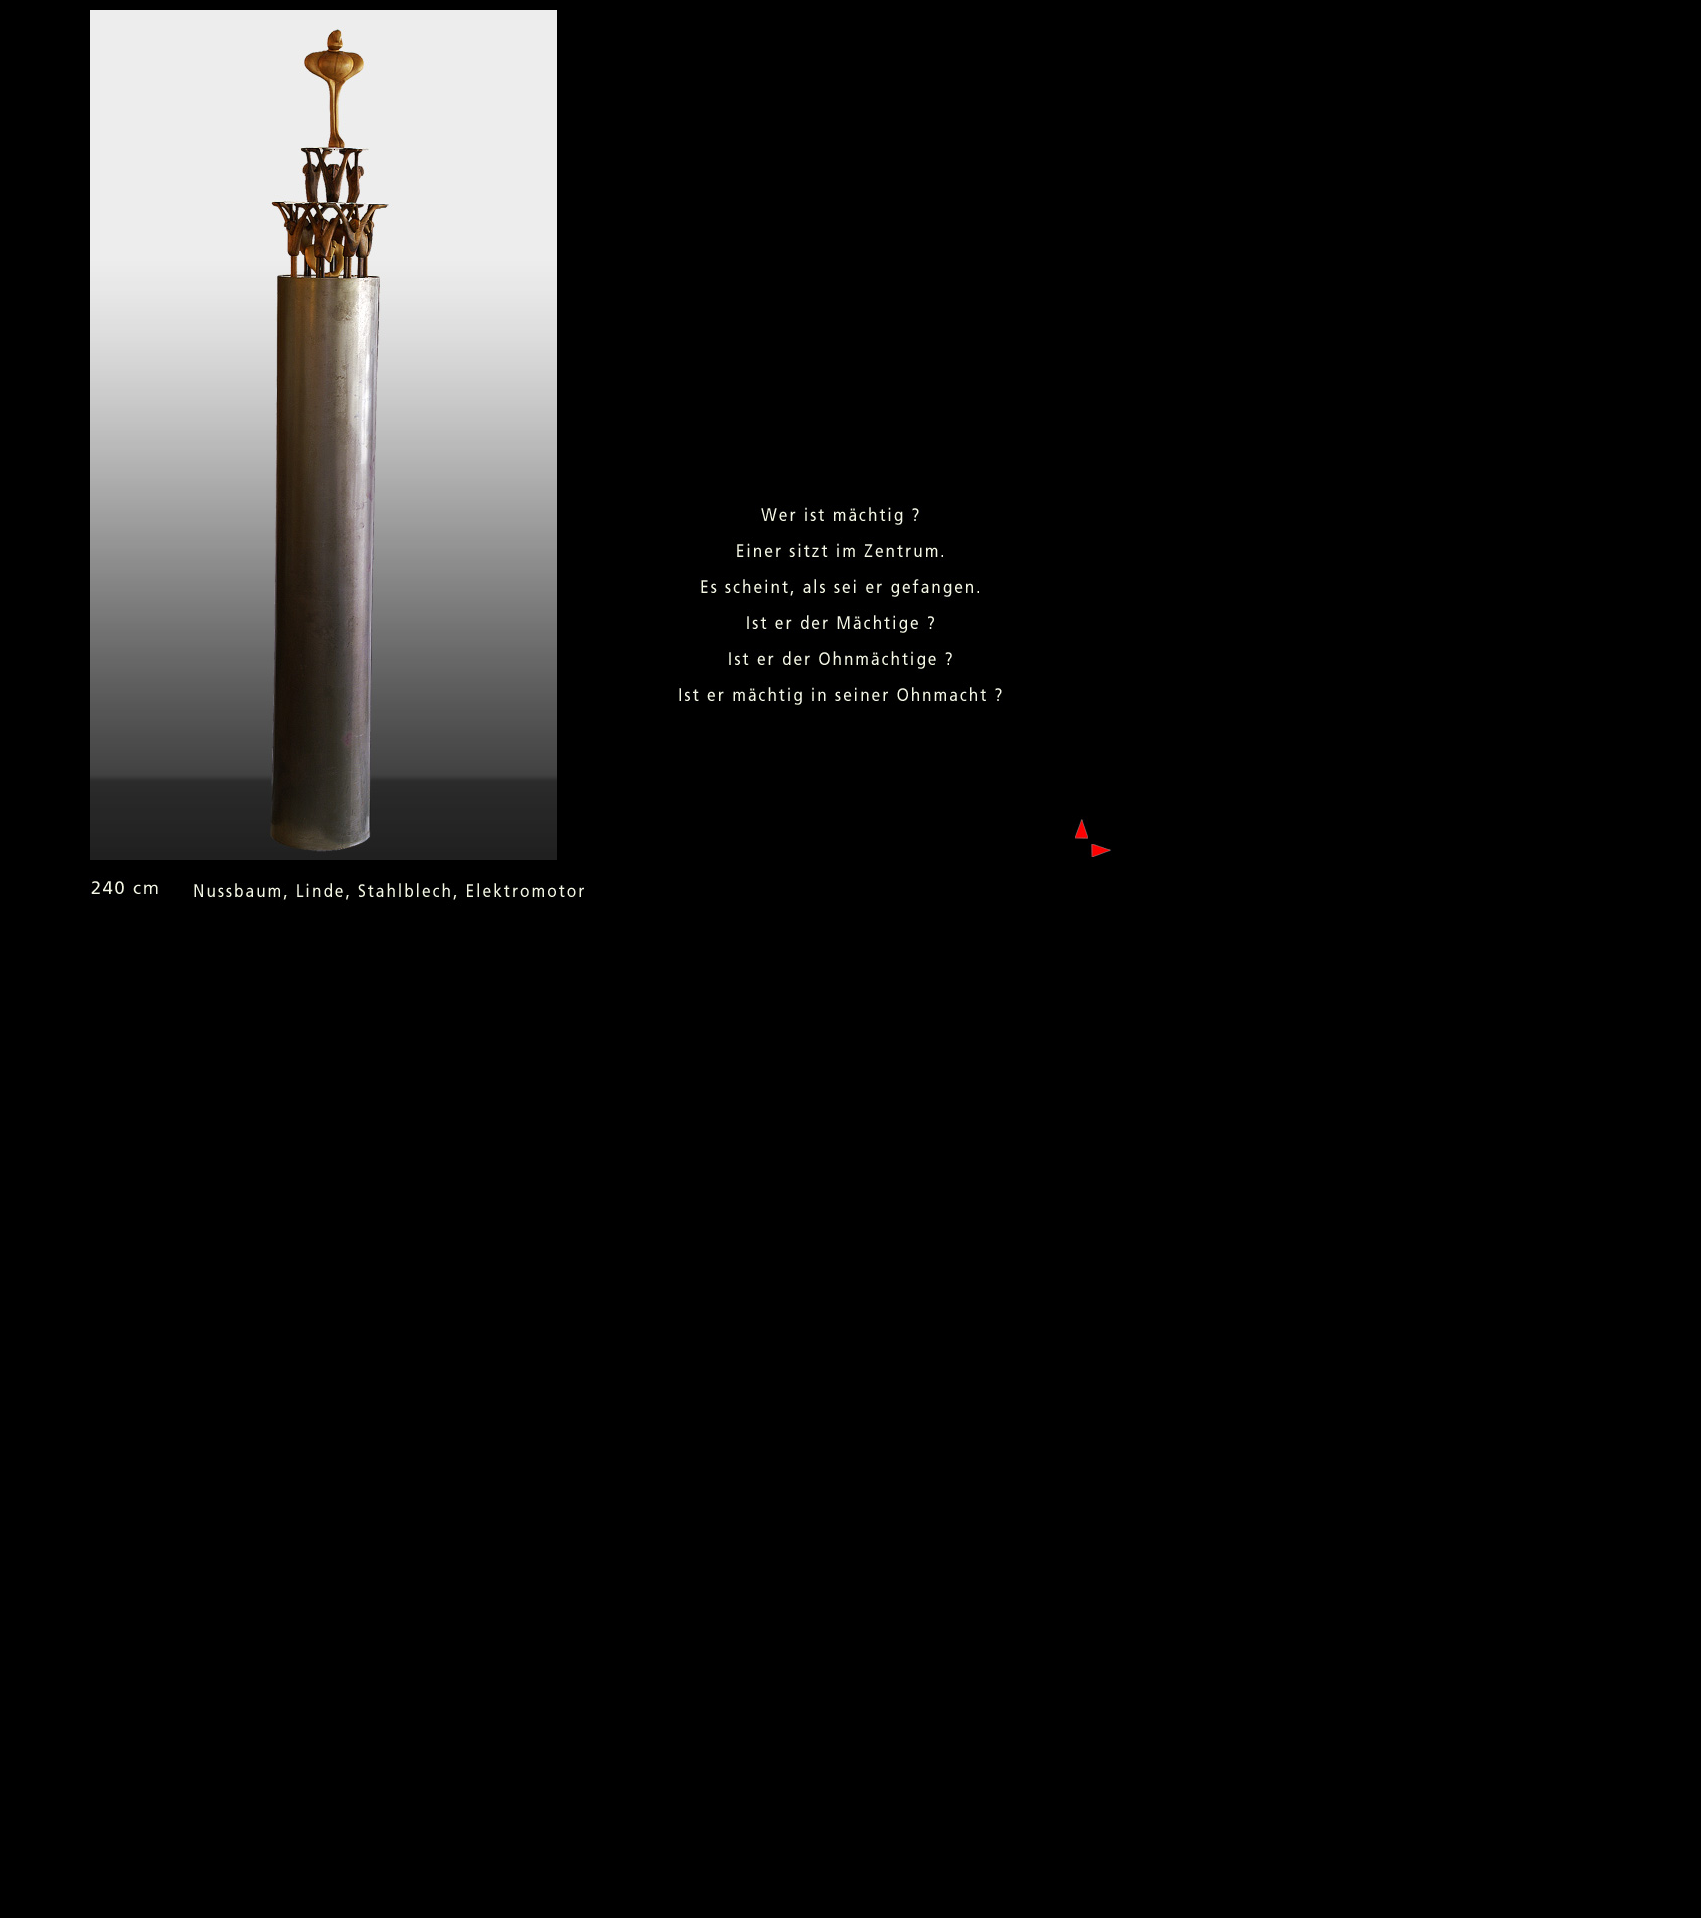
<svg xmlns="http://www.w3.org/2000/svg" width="1701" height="1918">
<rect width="100%" height="100%" fill="#000"/>
<image href="1.png" x="90" y="10" width="467" height="850"/>
<image href="2.png" x="678" y="505" width="325" height="200"/>
<image href="3.png" x="1072" y="816" width="16" height="24"/>
<image href="4.png" x="1088" y="840" width="24" height="20"/>
<image href="5.png" x="89" y="877" width="71" height="23"/>
<image href="6.png" x="190" y="883" width="398" height="23"/>
</svg>
